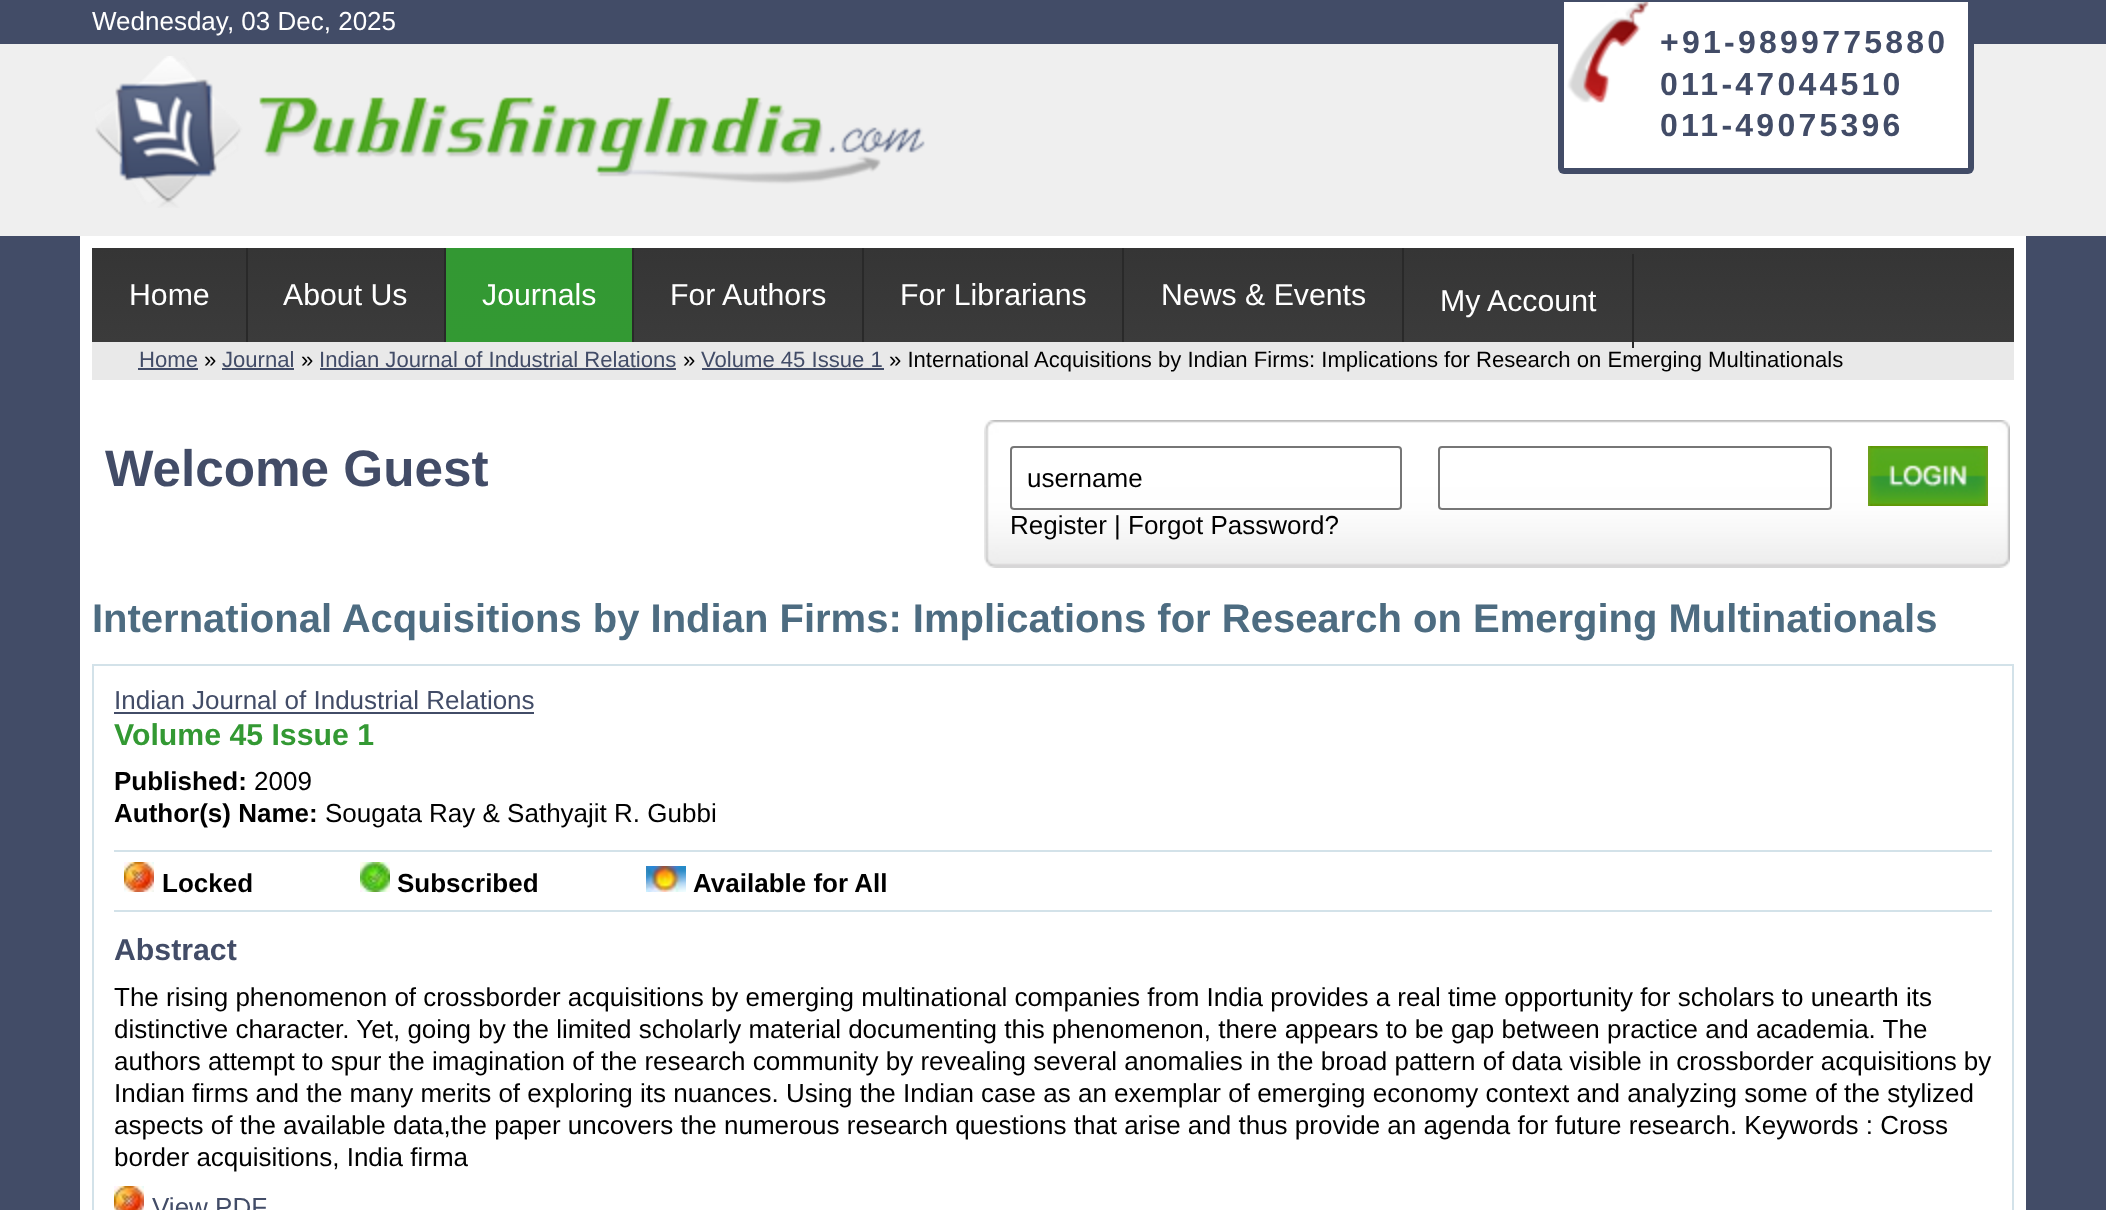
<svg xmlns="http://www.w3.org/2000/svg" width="2106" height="1210">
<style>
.a{font:26px Liberation Sans;fill:#fff}
.b{font:bold 32px Liberation Sans;letter-spacing:3.25px;fill:#424c67}
.c{font:30.25px Liberation Sans;fill:#fff}
.d{font:bold 51.25px Liberation Sans;fill:#424c67}
.e{font:26px Liberation Sans;fill:#000}
.f{font:22.1px Liberation Sans;fill:#424c67}
.g{font:22.1px Liberation Sans;fill:#000}
.h{font:bold 40px Liberation Sans;fill:#4d6c81}
.i{font:26px Liberation Sans;fill:#424c67}
.j{font:bold 30.25px Liberation Sans;fill:#393}
.k{font:bold 26px Liberation Sans;fill:#000}
.l{font:bold 30.25px Liberation Sans;fill:#424c67}
</style>
<defs>
<linearGradient id="g1" gradientUnits="userSpaceOnUse" x1="92" y1="248" x2="92" y2="342"><stop offset="0" stop-color="#353535"/><stop offset="1" stop-color="#3b3b3b"/></linearGradient>
<linearGradient id="g2" gradientUnits="userSpaceOnUse" x1="446" y1="248" x2="446" y2="342"><stop offset="0" stop-color="#339833"/><stop offset="1" stop-color="#393"/></linearGradient>
</defs>
<rect width="100%" height="100%" fill="#424c67"/>
<path fill="#efefef" d="M0 44h2106v192H0z"/>
<image href="1.png" x="95" y="56" width="830" height="152"/>
<rect fill="#424c67" x="1558" y="-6" width="416" height="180" rx="6"/>
<path fill="#fff" d="M1564 2h404v166H1564z"/>
<image href="2.png" x="1567" y="2" width="82" height="101"/>
<path fill="#fff" d="M80 236h1946v974H80z"/>
<path fill="url(#g1)" d="M92 248h1922v94H92z"/>
<path fill="#292929" d="M246 248h2v94H246z"/>
<path fill="#292929" d="M444 248h2v94H444z"/>
<path fill="#292929" d="M632 248h2v94H632z"/>
<path fill="url(#g2)" d="M446 248h186v94H446z"/>
<path fill="#292929" d="M862 248h2v94H862z"/>
<path fill="#292929" d="M1122 248h2v94H1122z"/>
<path fill="#292929" d="M1402 248h2v94H1402z"/>
<path fill="#e9e9e9" d="M92 342h1922v38H92z"/>
<path fill="#292929" d="M1632 254h2v94H1632z"/>
<image href="3.png" x="984" y="420" width="1026" height="148"/>
<rect fill="none" stroke="#767676" stroke-width="2" x="1011" y="447" width="390" height="62" rx="3"/>
<rect fill="none" stroke="#767676" stroke-width="2" x="1439" y="447" width="392" height="62" rx="3"/>
<image href="4.png" x="1868" y="446" width="120" height="60"/>
<path fill="#424c67" d="M138 368h60v2H138z"/>
<path fill="#424c67" d="M222 368h72v2H222z"/>
<path fill="#424c67" d="M320 368h356v2H320z"/>
<path fill="#424c67" d="M702 368h182v2H702z"/>
<path fill="none" stroke="#d3e2e9" stroke-width="2" d="M93 665h1920v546H93z"/>
<path fill="#424c67" d="M114 712h420v2H114z"/>
<path fill="#d3e2e9" d="M114 850h1878v2H114z"/>
<path fill="#d3e2e9" d="M114 910h1878v2H114z"/>
<image href="5.png" x="124" y="862" width="30" height="30"/>
<image href="6.png" x="360" y="862" width="30" height="30"/>
<image href="7.png" x="646" y="866" width="40" height="26"/>
<image href="8.png" x="114" y="1186" width="30" height="24"/>
<text class="a" x="92" y="30">Wednesday, 03 Dec, 2025</text>
<text class="b" x="1660" y="53">+91-9899775880</text>
<text class="b" x="1660" y="95">011-47044510</text>
<text class="b" x="1660" y="136">011-49075396</text>
<text class="c" x="129" y="305">Home</text>
<text class="c" x="283" y="305">About Us</text>
<text class="c" x="482" y="305">Journals</text>
<text class="c" x="670" y="305">For Authors</text>
<text class="c" x="900" y="305">For Librarians</text>
<text class="c" x="1161" y="305">News &amp; Events</text>
<text class="c" x="1440" y="311">My Account</text>
<text class="d" x="105" y="486">Welcome Guest</text>
<text class="e" x="1027" y="487">username</text>
<text class="e" x="1010" y="534">Register | Forgot Password?</text>
<text class="f" x="139" y="367">Home</text>
<text class="g" x="204" y="367">»</text>
<text class="f" x="222" y="367">Journal</text>
<text class="g" x="301" y="367">»</text>
<text class="f" x="319" y="367">Indian Journal of Industrial Relations</text>
<text class="g" x="683" y="367">»</text>
<text class="f" x="701" y="367">Volume 45 Issue 1</text>
<text class="g" x="889" y="367">» International Acquisitions by Indian Firms: Implications for Research on Emerging Multinationals</text>
<text class="h" x="92" y="632">International Acquisitions by Indian Firms: Implications for Research on Emerging Multinationals</text>
<text class="i" x="114" y="709">Indian Journal of Industrial Relations</text>
<text class="j" x="114" y="745">Volume 45 Issue 1</text>
<text class="k" x="114" y="790">Published:</text>
<text class="e" x="254" y="790">2009</text>
<text class="k" x="114" y="822">Author(s) Name:</text>
<text class="e" x="325" y="822">Sougata Ray &amp; Sathyajit R. Gubbi</text>
<text class="k" x="162" y="892">Locked</text>
<text class="k" x="397" y="892">Subscribed</text>
<text class="k" x="693" y="892">Available for All</text>
<text class="l" x="114" y="960">Abstract</text>
<text class="e" x="114" y="1006">The rising phenomenon of crossborder acquisitions by emerging multinational companies from India provides a real time opportunity for scholars to unearth its</text>
<text class="e" x="114" y="1038">distinctive character. Yet, going by the limited scholarly material documenting this phenomenon, there appears to be gap between practice and academia. The</text>
<text class="e" x="114" y="1070">authors attempt to spur the imagination of the research community by revealing several anomalies in the broad pattern of data visible in crossborder acquisitions by</text>
<text class="e" x="114" y="1102">Indian firms and the many merits of exploring its nuances. Using the Indian case as an exemplar of emerging economy context and analyzing some of the stylized</text>
<text class="e" x="114" y="1134">aspects of the available data,the paper uncovers the numerous research questions that arise and thus provide an agenda for future research. Keywords : Cross</text>
<text class="e" x="114" y="1166">border acquisitions, India firma</text>
<text class="i" x="152" y="1216">View PDF</text>
</svg>
